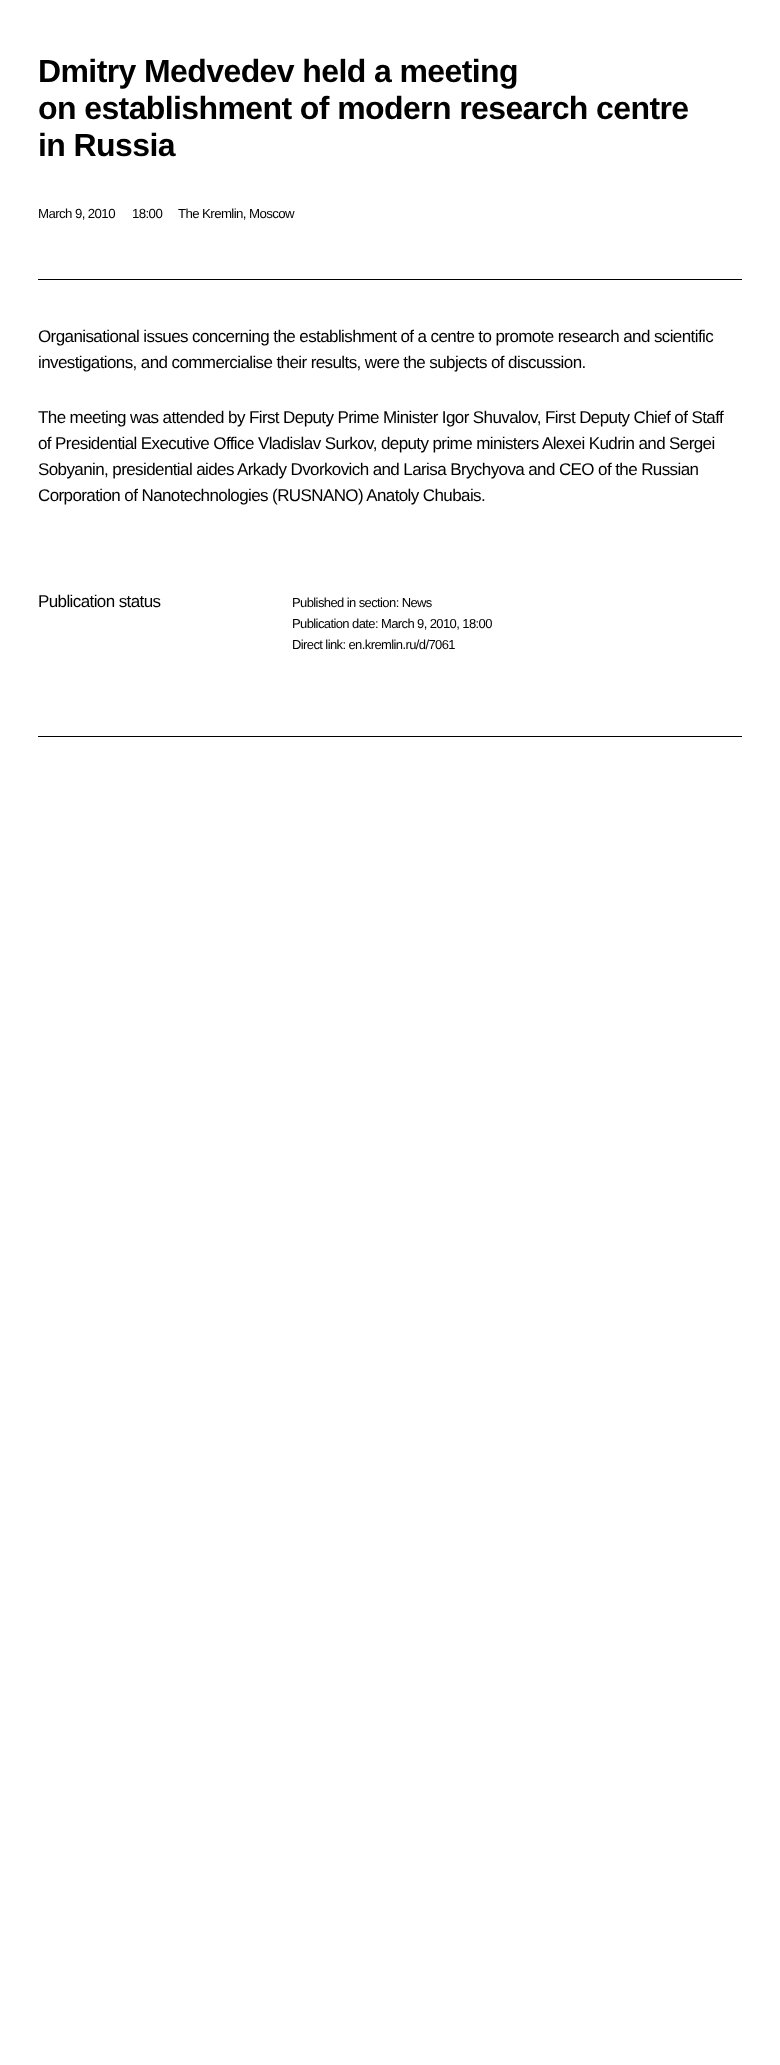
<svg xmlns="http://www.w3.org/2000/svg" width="780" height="2065">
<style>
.a{font:bold 32px Liberation Sans;letter-spacing:-0.6px;fill:#000}
.b{font:13.25px Liberation Sans;letter-spacing:-0.6px;fill:#000}
.c{font:17px Liberation Sans;letter-spacing:-0.6px;fill:#000}
.d{font:13px Liberation Sans;letter-spacing:-0.6px;fill:#000}
</style>
<rect width="100%" height="100%" fill="#fff"/>
<path fill="#000" d="M38 736h704v1H38z"/>
<path fill="#000" d="M38 279h704v1H38z"/>
<text class="a" x="38" y="82">Dmitry Medvedev held a meeting</text>
<text class="a" x="38" y="119">on establishment of modern research centre</text>
<text class="a" x="38" y="156">in Russia</text>
<text class="b" x="38" y="218">March 9, 2010</text>
<text class="b" x="132" y="218">18:00</text>
<text class="b" x="178" y="218">The Kremlin, Moscow</text>
<text class="c" x="38" y="342">Organisational issues concerning the establishment of a centre to promote research and scientific</text>
<text class="c" x="38" y="368">investigations, and commercialise their results, were the subjects of discussion.</text>
<text class="c" x="38" y="423">The meeting was attended by First Deputy Prime Minister Igor Shuvalov, First Deputy Chief of Staff</text>
<text class="c" x="38" y="449">of Presidential Executive Office Vladislav Surkov, deputy prime ministers Alexei Kudrin and Sergei</text>
<text class="c" x="38" y="475">Sobyanin, presidential aides Arkady Dvorkovich and Larisa Brychyova and CEO of the Russian</text>
<text class="c" x="38" y="501">Corporation of Nanotechnologies (RUSNANO) Anatoly Chubais.</text>
<text class="c" x="38" y="607">Publication status</text>
<text class="d" x="292" y="607">Published in section: News</text>
<text class="d" x="292" y="628">Publication date: March 9, 2010, 18:00</text>
<text class="d" x="292" y="649">Direct link: en.kremlin.ru/d/7061</text>
</svg>
